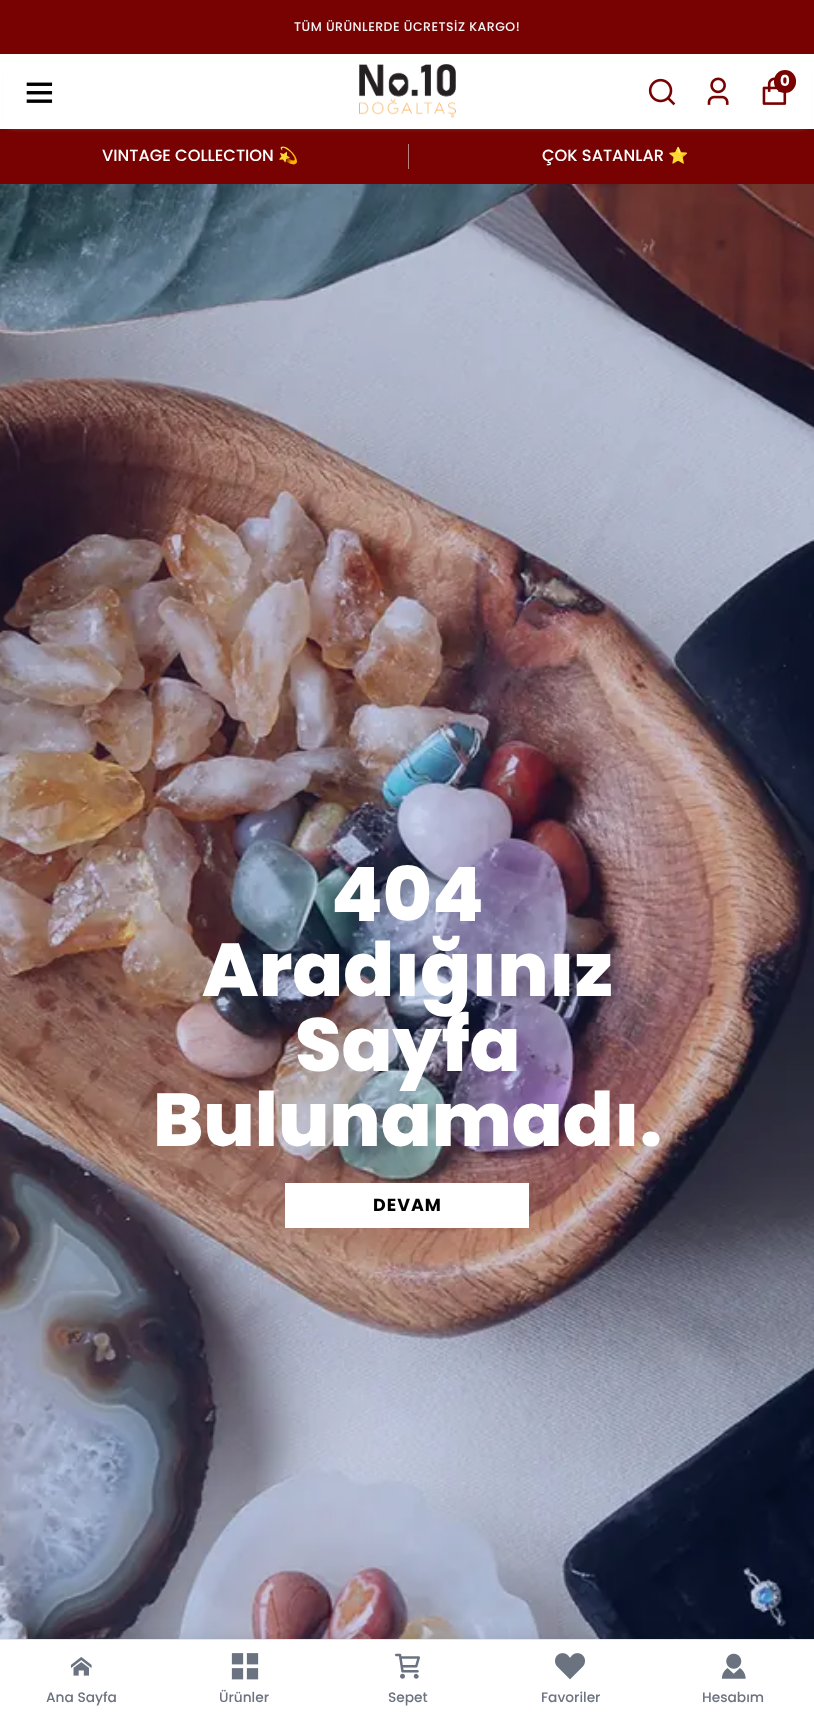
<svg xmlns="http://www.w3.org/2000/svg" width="814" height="1718">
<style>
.a{font:500 12.5px Poppins;letter-spacing:0.5px;fill:#f4f4f4}
.b{font:bold 15px Poppins;fill:#fff}
.c{font:500 16.25px Poppins;fill:#fff}
.d{font:16.25px Noto Color Emoji;fill:#fff}
.e{font:800 75px Poppins;fill:#fff}
.f{font:bold 17.5px Poppins;letter-spacing:1px;fill:#000}
.g{font:500 13.75px Poppins;fill:#6b7280}
</style>
<rect width="100%" height="100%" fill="#fff"/>
<path fill="#780202" d="M0 0h814v54H0z"/>
<path fill="#780202" d="M0 129h814v55H0z"/>
<path fill="#989898" filter="blur(3px)" d="M9 69h797v57H9z"/>
<path fill="#fff" d="M3 63h809v66H3z"/>
<image href="1.png" x="359" y="64" width="97" height="54"/>
<image href="2.png" x="648" y="78" width="28" height="28"/>
<image href="3.png" x="707" y="77" width="22" height="28"/>
<image href="4.png" x="762" y="77" width="25" height="28"/>
<rect fill="#780202" x="774" y="70" width="22" height="23" rx="11"/>
<image href="5.png" x="26" y="82" width="27" height="21"/>
<path fill="#bb8081" d="M408 144h1v25H408z"/>
<image href="6.png" x="0" y="184" width="814" height="1455"/>
<path fill="#fff" d="M285 1183h244v45H285z"/>
<path fill="#00000014" filter="blur(7.5px)" d="M0 1636h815v80H0z"/>
<path fill="#fff" d="M0 1640h814v78H0z"/>
<path fill="#e5e7eb" d="M0 1639h814v1H0z"/>
<image href="7.png" x="70" y="1657" width="22" height="19"/>
<image href="8.png" x="231" y="1653" width="28" height="27"/>
<image href="9.png" x="395" y="1653" width="25" height="26"/>
<image href="10.png" x="555" y="1653" width="30" height="27"/>
<image href="11.png" x="721" y="1653" width="25" height="26"/>
<text class="a" x="294" y="31">TÜM ÜRÜNLERDE ÜCRETSİZ KARGO!</text>
<text class="b" x="780" y="86">0</text>
<text class="c" x="102" y="161">VINTAGE COLLECTION</text>
<text class="d" x="278" y="161">💫</text>
<text class="c" x="542" y="161">ÇOK SATANLAR</text>
<text class="d" x="668" y="161">⭐️</text>
<text class="e" x="331" y="921">404</text>
<text class="e" x="202" y="996">Aradığınız</text>
<text class="e" x="295" y="1071">Sayfa</text>
<text class="e" x="153" y="1146">Bulunamadı.</text>
<text class="f" x="373" y="1211">DEVAM</text>
<text class="g" x="46" y="1702">Ana Sayfa</text>
<text class="g" x="219" y="1702">Ürünler</text>
<text class="g" x="388" y="1702">Sepet</text>
<text class="g" x="541" y="1702">Favoriler</text>
<text class="g" x="702" y="1702">Hesabım</text>
</svg>
